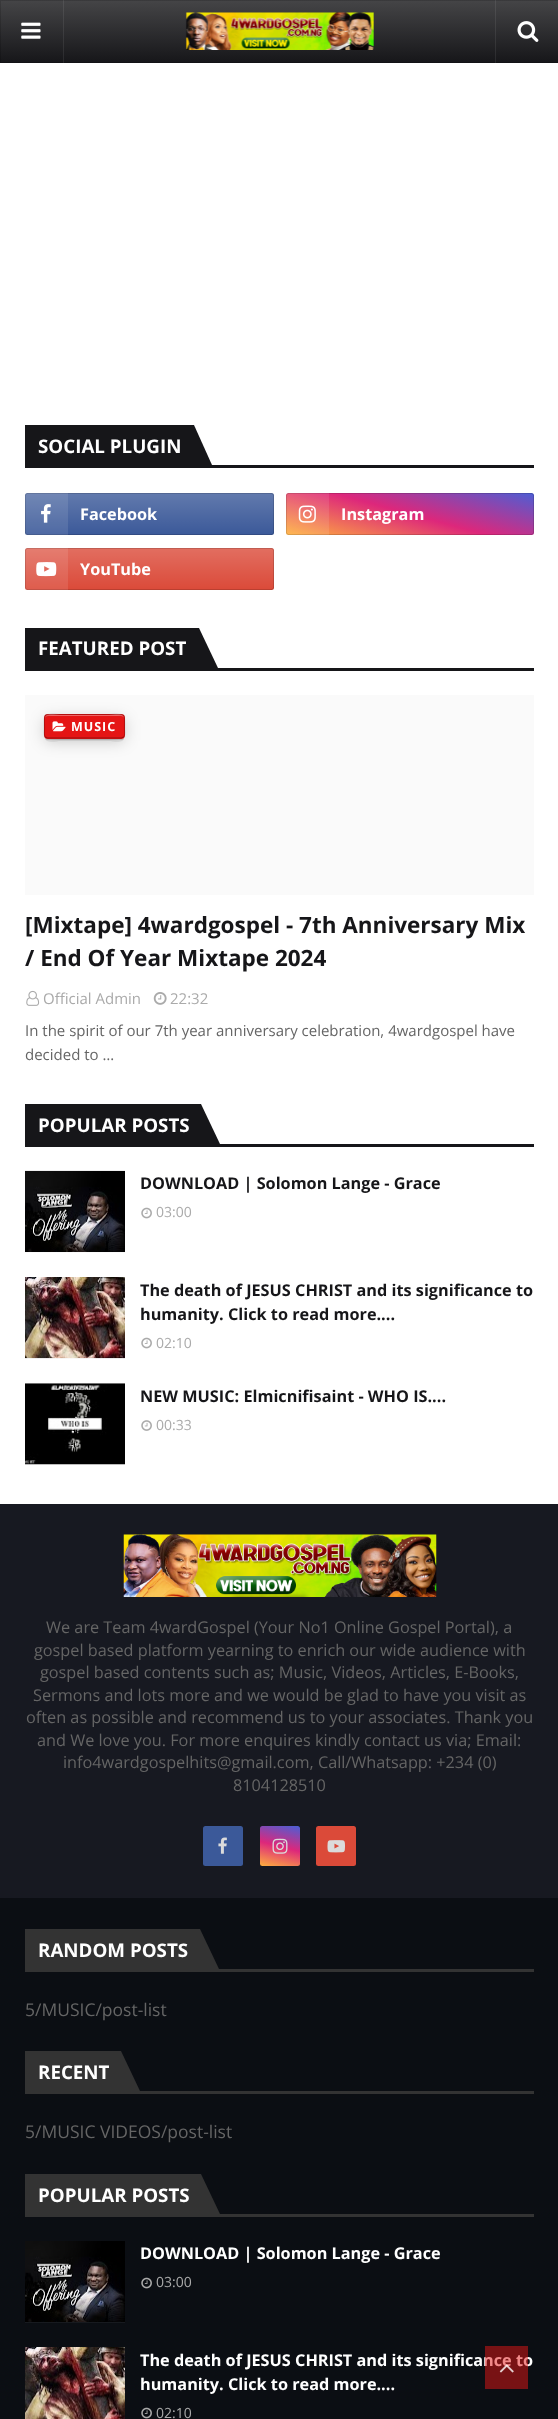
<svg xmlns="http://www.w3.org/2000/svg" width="558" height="2419">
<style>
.a{font:bold 18.75px Open Sans;fill:#fff}
.b{font:bold 16.25px Open Sans;fill:#fff}
.c{font:bold 12.5px Open Sans;letter-spacing:1px;fill:#fff}
.d{font:bold 22.5px Open Sans;fill:#161619}
.e{font:15px Open Sans;fill:#aaa}
.f{font:15px Open Sans;fill:#656565}
.g{font:bold 16.25px Open Sans;fill:#161619}
.h{font:14px Open Sans;fill:#aaa}
.i{font:16.25px Open Sans;fill:#656565}
.j{font:17.5px Open Sans;fill:#656565}
</style>
<defs>
<linearGradient id="g1" gradientUnits="userSpaceOnUse" x1="279" y1="0" x2="279" y2="63"><stop offset="0" stop-color="#454547"/><stop offset="1" stop-color="#161619"/></linearGradient>
<linearGradient id="g2" gradientUnits="userSpaceOnUse" x1="149" y1="493" x2="149" y2="535"><stop offset="0" stop-color="#fff" stop-opacity="0.2"/><stop offset="1" stop-color="#fff" stop-opacity="0"/></linearGradient>
<linearGradient id="g3" gradientUnits="userSpaceOnUse" x1="396" y1="565" x2="424" y2="463"><stop offset="0" stop-color="#ffb13d"/><stop offset="0.5" stop-color="#dd277b"/><stop offset="1" stop-color="#4d5ed4"/></linearGradient>
<linearGradient id="g4" gradientUnits="userSpaceOnUse" x1="149" y1="548" x2="149" y2="590"><stop offset="0" stop-color="#fff" stop-opacity="0.2"/><stop offset="1" stop-color="#fff" stop-opacity="0"/></linearGradient>
<linearGradient id="g5" gradientUnits="userSpaceOnUse" x1="274" y1="1870" x2="286" y2="1823"><stop offset="0" stop-color="#ffb13d"/><stop offset="0.5" stop-color="#dd277b"/><stop offset="1" stop-color="#4d5ed4"/></linearGradient>
</defs>
<rect width="100%" height="100%" fill="#fff"/>
<path fill="url(#g1)" d="M0 0h558v63H0z"/>
<path fill="none" stroke="#00000026" d="M0.5 0.5h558v62H0.5z"/>
<path fill="#ffffff14" d="M63 0h1v63H63z"/>
<image href="1.png" x="21" y="22" width="20" height="17"/>
<image href="2.png" x="185" y="12" width="189" height="38"/>
<path fill="#ffffff14" d="M495 0h1v63H495z"/>
<image href="3.png" x="517" y="21" width="22" height="21"/>
<path fill="#161619" d="M25 465h509v3H25z"/>
<path fill="#161619" d="M25 425h169v40H25z"/>
<path fill="#161619" d="M194 465v-40l18 40z"/>
<rect fill="#3b5999" x="25" y="493" width="249" height="42" rx="2.5"/>
<rect fill="url(#g2)" x="25" y="493" width="249" height="42" rx="2.5"/>
<rect fill="none" stroke="#00000026" x="25.5" y="493.5" width="248" height="41" rx="2"/>
<path fill="#ffffff1a" d="M25 493h43v42H25z"/>
<image href="4.png" x="41" y="504" width="10" height="19"/>
<rect fill="url(#g3)" x="286" y="493" width="248" height="42" rx="2.5"/>
<rect fill="none" stroke="#00000026" x="286.5" y="493.5" width="247" height="41" rx="2"/>
<path fill="#ffffff1a" d="M286 493h43v42H286z"/>
<image href="5.png" x="298" y="505" width="18" height="18"/>
<rect fill="#db4a39" x="25" y="548" width="249" height="42" rx="2.5"/>
<rect fill="url(#g4)" x="25" y="548" width="249" height="42" rx="2.5"/>
<rect fill="none" stroke="#00000026" x="25.5" y="548.5" width="248" height="41" rx="2"/>
<path fill="#ffffff1a" d="M25 548h43v42H25z"/>
<image href="6.png" x="36" y="562" width="21" height="15"/>
<path fill="#161619" d="M25 668h509v3H25z"/>
<path fill="#161619" d="M25 628h174v40H25z"/>
<path fill="#161619" d="M199 668v-40l19 40z"/>
<path fill="#fafafa" d="M25 695h509v200H25z"/>
<rect fill="#00000036" filter="blur(8px)" x="45" y="719" width="79" height="22" rx="2.5"/>
<path fill="#00000014" d="M45 738c0 6 13 3 15 3h49c3 0 15 3 15-3l-2 1h-75z"/>
<path fill="#00000021" d="M45 738c0 1 1 2 3 2h74c1 0 2-1 2-2l-2 1h-75z"/>
<rect fill="#e51515" x="44" y="714" width="81" height="25" rx="4"/>
<path fill="#ee6565" d="M48 716h73c2 0 3 1 3 3c0-7-9-4-15-4h-49c-6 0-15-3-15 4c0-2 1-3 3-3z"/>
<path fill="none" stroke="#00000057" stroke-width="1.2" d="M123.5 737l-2 1h-74.5l-1.5-1"/>
<path fill="none" stroke="#00000036" stroke-width="1.2" d="M45.5 737c-2-1.5-1-5.5-1-8c0-17-3-14.5 15.5-14.5h49c18 0 15.5-2.5 15.5 14.5c0 2.5 1 6.5-1 8"/>
<image href="7.png" x="52" y="721" width="14" height="11"/>
<image href="8.png" x="26" y="990" width="14" height="16"/>
<image href="9.png" x="153" y="992" width="14" height="13"/>
<path fill="#161619" d="M25 1144h509v3H25z"/>
<path fill="#161619" d="M25 1104h176v40H25z"/>
<path fill="#161619" d="M201 1144v-40l19 40z"/>
<path fill="#fafafa" d="M25 1252h100v1H25z"/>
<image href="10.png" x="25" y="1170" width="100" height="82"/>
<image href="11.png" x="141" y="1207" width="11" height="12"/>
<path fill="#fafafa" d="M25 1358h100v1H25z"/>
<image href="12.png" x="25" y="1277" width="100" height="82"/>
<image href="11.png" x="141" y="1337" width="11" height="12"/>
<path fill="#fafafa" d="M25 1464h100v1H25z"/>
<image href="13.png" x="25" y="1383" width="100" height="82"/>
<image href="14.png" x="141" y="1420" width="11" height="11"/>
<path fill="#0b0e13" d="M0 1898h558v521H0z"/>
<path fill="#171921" d="M0 1504h558v394H0z"/>
<image href="15.png" x="123" y="1534" width="314" height="63"/>
<rect fill="#3b5999" x="203" y="1826" width="40" height="40" rx="2.5"/>
<image href="16.png" x="218" y="1837" width="9" height="17"/>
<rect fill="url(#g5)" x="260" y="1826" width="40" height="40" rx="2.5"/>
<image href="17.png" x="272" y="1838" width="16" height="16"/>
<rect fill="#db4a39" x="316" y="1826" width="40" height="40" rx="2.5"/>
<image href="18.png" x="327" y="1840" width="18" height="13"/>
<path fill="#333" d="M25 1969h509v3H25z"/>
<path fill="#333" d="M25 1929h175v40H25z"/>
<path fill="#333" d="M200 1969v-40l19 40z"/>
<path fill="#333" d="M25 2091h509v3H25z"/>
<path fill="#333" d="M25 2051h96v40H25z"/>
<path fill="#333" d="M121 2091v-40l19 40z"/>
<path fill="#333" d="M25 2214h509v3H25z"/>
<path fill="#333" d="M25 2174h176v40H25z"/>
<path fill="#333" d="M201 2214v-40l19 40z"/>
<path fill="#171a1f" d="M25 2322h100v1H25z"/>
<image href="19.png" x="25" y="2241" width="100" height="81"/>
<image href="20.png" x="141" y="2277" width="11" height="12"/>
<image href="21.png" x="25" y="2347" width="100" height="72"/>
<image href="20.png" x="141" y="2407" width="11" height="12"/>
<text class="a" x="38" y="453">SOCIAL PLUGIN</text>
<text class="b" x="80" y="520">Facebook</text>
<text class="b" x="341" y="520">Instagram</text>
<text class="b" x="80" y="575">YouTube</text>
<text class="a" x="38" y="655">FEATURED POST</text>
<text class="c" x="71" y="731">MUSIC</text>
<text class="d" x="25" y="933">[Mixtape] 4wardgospel - 7th Anniversary Mix</text>
<text class="d" x="25" y="966">/ End Of Year Mixtape 2024</text>
<text class="e" x="43" y="1004">Official Admin</text>
<text class="e" x="170" y="1004">22:32</text>
<text class="f" x="25" y="1036">In the spirit of our 7th year anniversary celebration, 4wardgospel have</text>
<text class="f" x="25" y="1060">decided to …</text>
<text class="a" x="38" y="1132">POPULAR POSTS</text>
<text class="g" x="140" y="1189">DOWNLOAD | Solomon Lange - Grace</text>
<text class="h" x="156" y="1217">03:00</text>
<text class="g" x="140" y="1296">The death of JESUS CHRIST and its significance to</text>
<text class="g" x="140" y="1320">humanity. Click to read more....</text>
<text class="h" x="156" y="1348">02:10</text>
<text class="g" x="140" y="1402">NEW MUSIC: Elmicnifisaint - WHO IS....</text>
<text class="h" x="156" y="1430">00:33</text>
<text class="i" x="46" y="1633">We are Team 4wardGospel (Your No1 Online Gospel Portal), a</text>
<text class="i" x="34" y="1656">gospel based platform yearning to enrich our wide audience with</text>
<text class="i" x="40" y="1678">gospel based contents such as; Music, Videos, Articles, E-Books,</text>
<text class="i" x="33" y="1701">Sermons and lots more and we would be glad to have you visit as</text>
<text class="i" x="26" y="1723">often as possible and recommend us to your associates. Thank you</text>
<text class="i" x="37" y="1746">and We love you. For more enquires kindly contact us via; Email:</text>
<text class="i" x="63" y="1768">info4wardgospelhits@gmail.com, Call/Whatsapp: +234 (0)</text>
<text class="i" x="233" y="1791">8104128510</text>
<text class="a" x="38" y="1957">RANDOM POSTS</text>
<text class="j" x="25" y="2016">5/MUSIC/post-list</text>
<text class="a" x="38" y="2079">RECENT</text>
<text class="j" x="25" y="2138">5/MUSIC VIDEOS/post-list</text>
<text class="a" x="38" y="2202">POPULAR POSTS</text>
<text class="b" x="140" y="2259">DOWNLOAD | Solomon Lange - Grace</text>
<text class="h" x="156" y="2287">03:00</text>
<text class="b" x="140" y="2366">The death of JESUS CHRIST and its significance to</text>
<text class="b" x="140" y="2390">humanity. Click to read more....</text>
<text class="h" x="156" y="2418">02:10</text>
<path fill="#e5151580" d="M485 2346h43v43H485z"/>
<image href="22.png" x="499" y="2364" width="15" height="9"/>
</svg>
